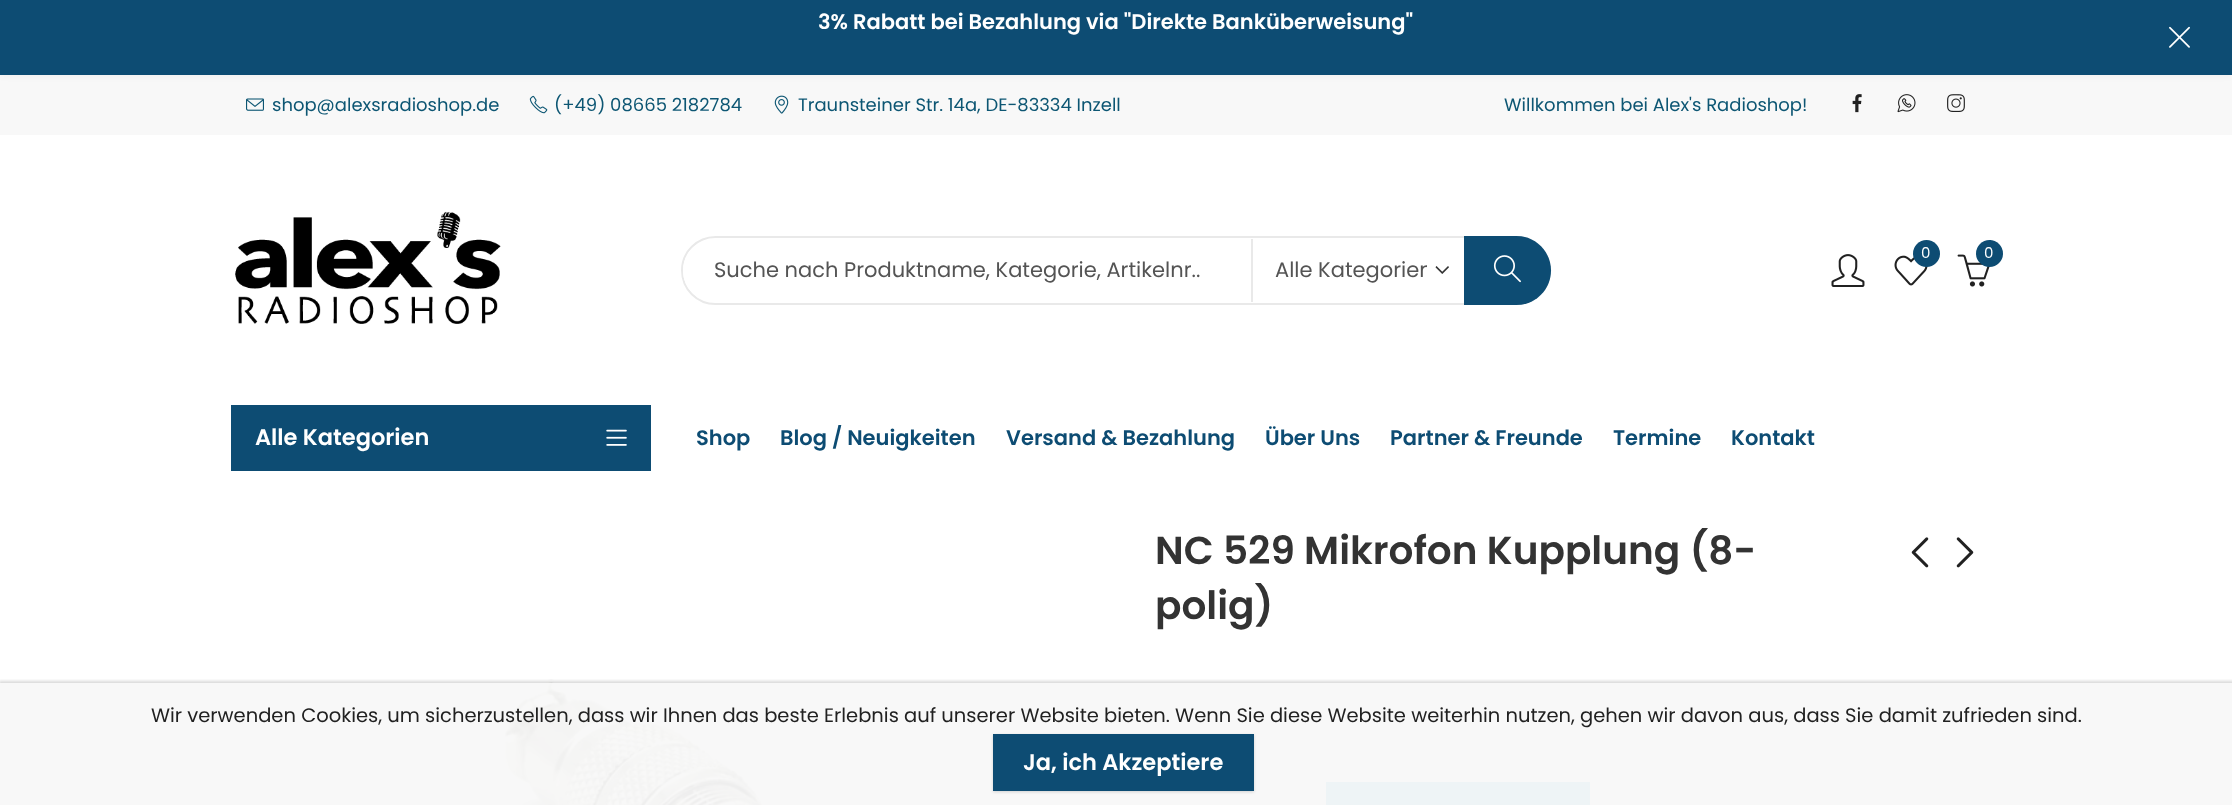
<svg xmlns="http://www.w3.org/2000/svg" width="2232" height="805">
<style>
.a{font:600 21px Poppins;fill:#fff}
.b{font:18px Poppins;fill:#0d5673}
.c{font:15px Poppins;fill:#fff}
.d{font:21px Poppins;fill:#545454}
.e{font:600 22.5px Poppins;fill:#fff}
.f{font:600 21px Poppins;fill:#0d4c73}
.g{font:600 39px Poppins;fill:#333}
.h{font:19.5px Poppins;fill:#212121}
</style>
<defs>
<clipPath id="clip1"><path d="M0 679h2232v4H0z"/></clipPath>
<clipPath id="clip2"><path d="M1275 254h152v33H1275z"/></clipPath>
</defs>
<rect width="100%" height="100%" fill="#fff"/>
<path fill="#f8f8f8" d="M0 75h2232v60H0z"/>
<path fill="#0000000f" filter="blur(4px)" d="M0 -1h2232v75H0z"/>
<path fill="#0d4c73" d="M0 0h2232v75H0z"/>
<image href="1.png" x="2169" y="26" width="21" height="22"/>
<image href="2.png" x="246" y="98" width="18" height="13"/>
<image href="3.png" x="529" y="95" width="19" height="19"/>
<image href="4.png" x="774" y="95" width="15" height="19"/>
<image href="5.png" x="1852" y="94" width="10" height="19"/>
<image href="6.png" x="1897" y="94" width="19" height="19"/>
<image href="7.png" x="1947" y="94" width="18" height="18"/>
<image href="8.png" x="235" y="211" width="266" height="113"/>
<image href="9.png" x="1894" y="255" width="34" height="31"/>
<circle fill="#0d4c73" cx="1926.5" cy="253.5" r="13.5"/>
<image href="10.png" x="1957" y="254" width="33" height="33"/>
<circle fill="#0d4c73" cx="1989.5" cy="253.5" r="13.5"/>
<image href="11.png" x="1831" y="254" width="34" height="33"/>
<rect fill="none" stroke="#e9e9e9" stroke-width="2" x="682" y="237" width="868" height="67" rx="33.5"/>
<path fill="#fff" d="M714.5 239h538.5v63h-538.5c-17.5 0-31.5-14-31.5-31.5c0-17.5 14-31.5 31.5-31.5z"/>
<path fill="#e9e9e9" d="M1251 239h2v63H1251z"/>
<image href="12.png" x="1435" y="266" width="14" height="8"/>
<path fill="#0d4c73" d="M1464 236h52.5c19 0 34.5 15.5 34.5 34.5c0 19-15.5 34.5-34.5 34.5h-52.5z"/>
<image href="13.png" x="1493" y="255" width="28" height="28"/>
<path fill="#0d4c73" d="M231 405h420v66H231z"/>
<image href="14.png" x="606" y="429" width="21" height="17"/>
<image href="15.png" x="1911" y="537" width="18" height="31"/>
<image href="16.png" x="1956" y="537" width="18" height="31"/>
<path fill="#e9e9e9" d="M1157 783h2v22H1157z"/>
<path fill="none" stroke="#e9e9e9" stroke-width="2" d="M1198 784h66v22H1198z"/>
<path fill="#e9e9e9" d="M1265 783h40v2H1265z"/>
<path fill="#e9e9e9" d="M1304 783h2v22H1304z"/>
<path fill="#00000026" filter="blur(1.5px)" d="M1326 783h264v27H1326z"/>
<path fill="#1790bf" d="M1326 782h264v23H1326z"/>
<image href="17.png" x="501" y="679" width="263" height="126"/>
<g clip-path="url(#clip1)">
<path fill="#00000026" filter="blur(1.5px)" d="M-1 681h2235v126H-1z"/>
</g>
<path fill="#f8f8f8f5" d="M0 683h2232v122H0z"/>
<path fill="#00000026" filter="blur(1.5px)" d="M993 735h261v57H993z"/>
<path fill="#0d4c73" d="M993 734h261v57H993z"/>
<text class="a" x="818" y="29">3% Rabatt bei Bezahlung via "Direkte Banküberweisung"</text>
<text class="b" x="272" y="111">shop@alexsradioshop.de</text>
<text class="b" x="554" y="111">(+49) 08665 2182784</text>
<text class="b" x="798" y="111">Traunsteiner Str. 14a, DE-83334 Inzell</text>
<text class="b" x="1504" y="111">Willkommen bei Alex's Radioshop!</text>
<text class="c" x="1921" y="258">0</text>
<text class="c" x="1984" y="258">0</text>
<text class="d" x="714" y="277">Suche nach Produktname, Kategorie, Artikelnr..</text>
<g clip-path="url(#clip2)">
<text class="d" x="1275" y="277">Alle Kategorien</text>
</g>
<text class="e" x="255" y="445">Alle Kategorien</text>
<text class="f" x="696" y="445">Shop</text>
<text class="f" x="780" y="445">Blog / Neuigkeiten</text>
<text class="f" x="1006" y="445">Versand &amp; Bezahlung</text>
<text class="f" x="1265" y="445">Über Uns</text>
<text class="f" x="1390" y="445">Partner &amp; Freunde</text>
<text class="f" x="1613" y="445">Termine</text>
<text class="f" x="1731" y="445">Kontakt</text>
<text class="g" x="1155" y="564">NC 529 Mikrofon Kupplung (8-</text>
<text class="g" x="1155" y="619">polig)</text>
<text class="h" x="151" y="722">Wir verwenden Cookies, um sicherzustellen, dass wir Ihnen das beste Erlebnis auf unserer Website bieten. Wenn Sie diese Website weiterhin nutzen, gehen wir davon aus, dass Sie damit zufrieden sind.</text>
<text class="e" x="1023" y="770">Ja, ich Akzeptiere</text>
</svg>
